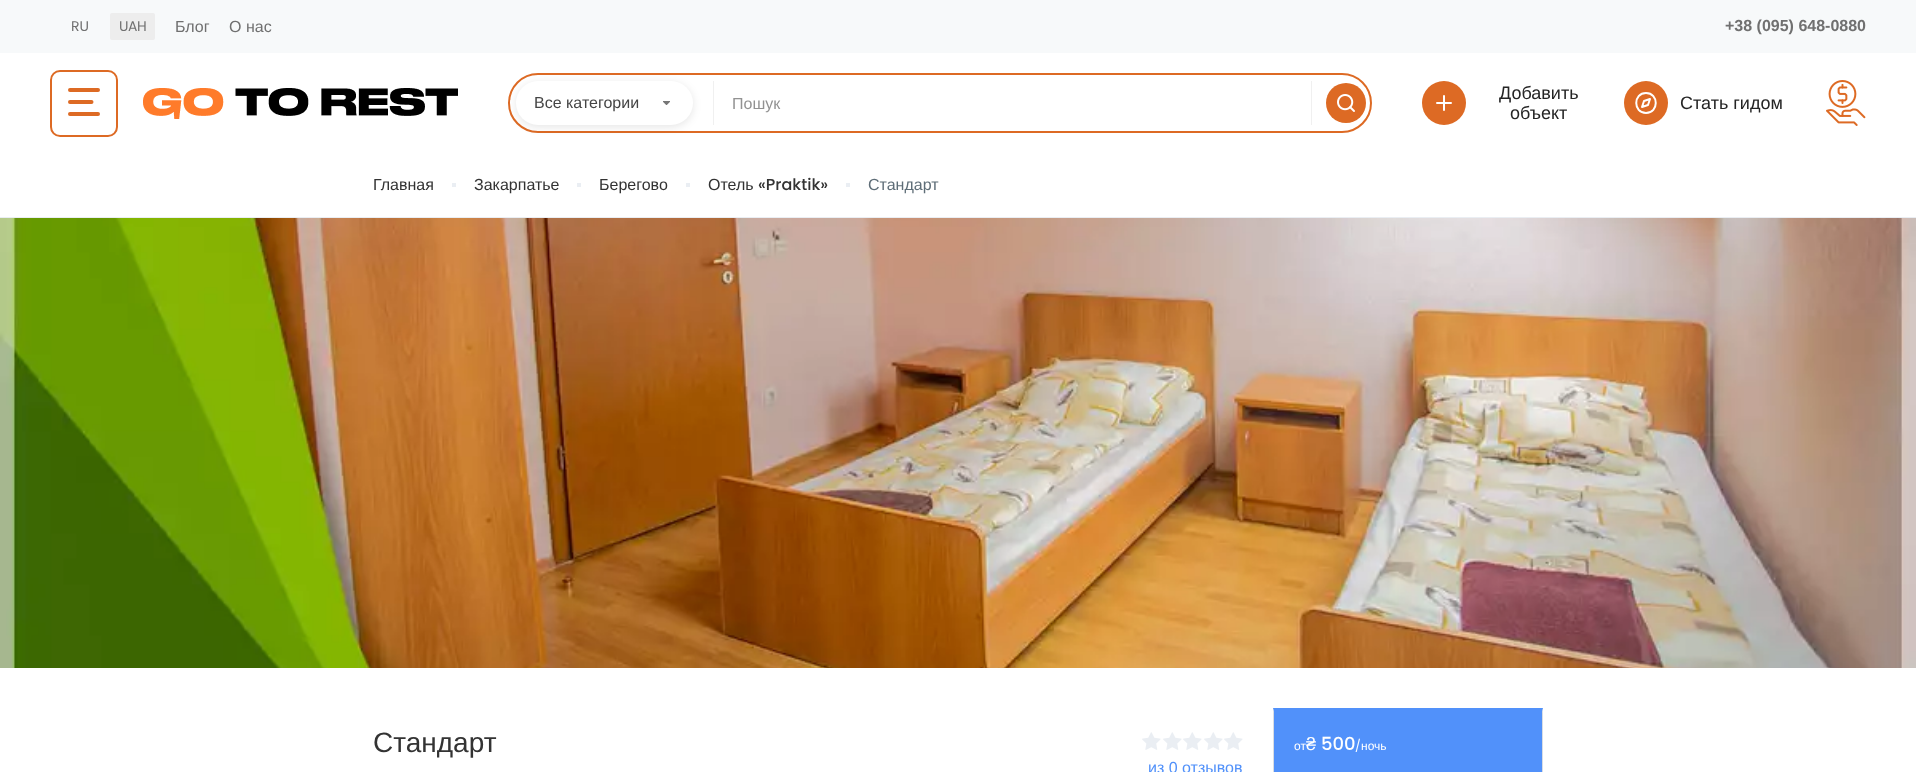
<svg xmlns="http://www.w3.org/2000/svg" width="1916" height="772">
<style>
.a{font:14px Poppins;fill:#707070}
.b{font:14px Poppins;letter-spacing:-0.5px;fill:#707070}
.c{font:16px Liberation Sans;fill:#707070}
.d{font:bold 16px Liberation Sans;fill:#707070}
.e{font:16px Liberation Sans;fill:#454545}
.f{font:16px Liberation Sans;fill:#929292}
.g{font:18px Liberation Sans;fill:#252525}
.h{font:16px Liberation Sans;fill:#333}
.i{font:500 16px Poppins;fill:#333}
.j{font:16px Liberation Sans;fill:#5e6d77}
.k{font:28px Liberation Sans;fill:#333}
.l{font:16px Liberation Sans;fill:#5191fa}
.m{font:12px Liberation Sans;fill:#fff}
.n{font:18px Liberation Sans;fill:#fff}
.o{font:500 18px Poppins;fill:#fff}
.p{font:12px Poppins;fill:#fff}
</style>
<rect width="100%" height="100%" fill="#fff"/>
<path fill="#f7f9fa" d="M0 0h1916v53H0z"/>
<rect fill="#ededed" x="110" y="13" width="45" height="27" rx="2"/>
<rect fill="none" stroke="#dd6a24" stroke-width="2" x="51" y="71" width="66" height="65" rx="9"/>
<path fill="none" stroke="#dd6a24" stroke-width="4" stroke-linecap="round" stroke-linejoin="round" d="M91.5 102h-21.5m28-12h-28m28 24h-28"/>
<image href="1.png" x="143" y="88" width="315" height="31"/>
<rect fill="none" stroke="#dd6a24" stroke-width="2" x="509" y="74" width="862" height="58" rx="29"/>
<rect fill="#0000001a" filter="blur(4px)" x="516" y="83" width="177" height="44" rx="22"/>
<rect fill="#fff" x="516" y="81" width="177" height="44" rx="22"/>
<image href="2.png" x="663" y="101" width="7" height="4"/>
<path fill="#f0f0f0" d="M1311 81h1v44H1311z"/>
<path fill="#f0f0f0" d="M713 81h1v44H713z"/>
<circle fill="#dd6a24" cx="1346" cy="103" r="20"/>
<image href="3.png" x="1337" y="94" width="18" height="18"/>
<circle fill="#dd6a24" cx="1444" cy="103" r="22"/>
<path fill="none" stroke="#fff" stroke-width="2" stroke-linecap="round" stroke-linejoin="round" d="M1444 96v14m-7-7h14"/>
<circle fill="#dd6a24" cx="1646" cy="103" r="22"/>
<path fill="none" stroke="#fff" stroke-width="2" stroke-linecap="round" stroke-linejoin="round" d="M1646 113c13 0 13-20 0-20c-13 0-13 20 0 20zm4-14l-2 6l-6 2l2-6z"/>
<image href="4.png" x="1826" y="80" width="40" height="46"/>
<path fill="#eaeef3" d="M0 217h1916v1H0z"/>
<path fill="#eaeef3" d="M452 183h4v4H452z"/>
<path fill="#eaeef3" d="M577 183h4v4H577z"/>
<path fill="#eaeef3" d="M686 183h4v4H686z"/>
<path fill="#eaeef3" d="M846 183h4v4H846z"/>
<image href="5.png" x="0" y="218" width="1916" height="450"/>
<image href="6.png" x="1142" y="732" width="19" height="18"/>
<image href="6.png" x="1163" y="732" width="19" height="18"/>
<image href="6.png" x="1183" y="732" width="19" height="18"/>
<image href="6.png" x="1204" y="732" width="19" height="18"/>
<image href="6.png" x="1224" y="732" width="19" height="18"/>
<path fill="#5191fa" d="M1273 708l1 5h268l1-5z"/>
<path fill="#d7dce3" d="M1543 708l-1 5v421l-1 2l1 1l1-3z"/>
<path fill="#d7dce3" d="M1274 713l-1-5v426l1 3l1-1l-1-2z"/>
<path fill="#5191fa" d="M1274 713h268v59H1274z"/>
<text class="a" x="71" y="31">RU</text>
<text class="b" x="119" y="31">UAH</text>
<text class="c" x="175" y="32">Блог</text>
<text class="c" x="229" y="32">О нас</text>
<text class="d" x="1725" y="31">+38 (095) 648-0880</text>
<text class="e" x="534" y="108">Все категории</text>
<text class="f" x="732" y="109">Пошук</text>
<text class="g" x="1499" y="99">Добавить</text>
<text class="g" x="1510" y="119">объект</text>
<text class="g" x="1680" y="109">Стать гидом</text>
<text class="h" x="373" y="190">Главная</text>
<text class="h" x="474" y="190">Закарпатье</text>
<text class="h" x="599" y="190">Берегово</text>
<text class="h" x="708" y="190">Отель</text>
<text class="i" x="758" y="190">«Praktik»</text>
<text class="j" x="868" y="190">Стандарт</text>
<text class="k" x="373" y="752">Стандарт</text>
<text class="l" x="1148" y="773">из 0 отзывов</text>
<text class="m" x="1294" y="750">от</text>
<text class="n" x="1306" y="750">₴</text>
<text class="o" x="1321" y="750">500</text>
<text class="p" x="1355" y="750">/</text>
<text class="m" x="1361" y="750">ночь</text>
</svg>
